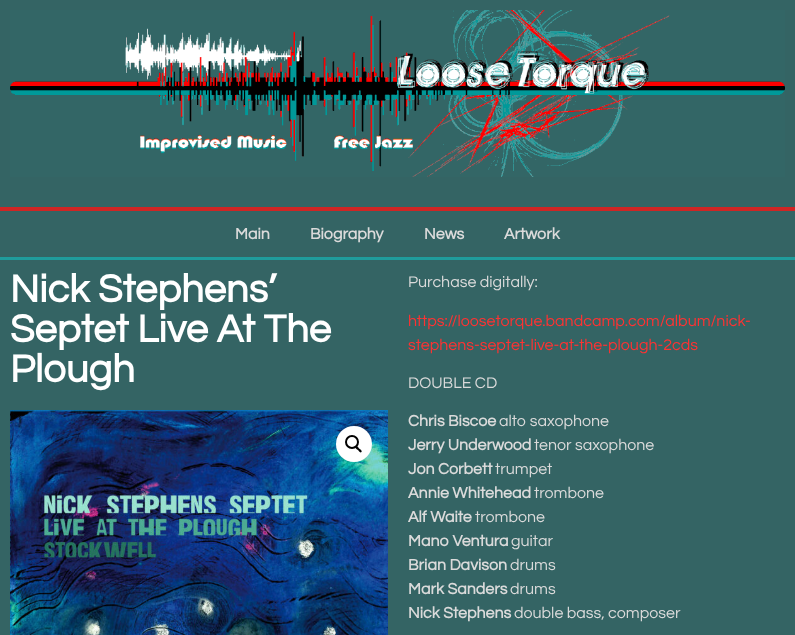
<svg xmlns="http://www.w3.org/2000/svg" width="795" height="635">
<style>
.a{font:bold 16px Questrial;fill:#dadada}
.b{font:bold 40px Questrial;fill:#fff}
.c{font:16px Questrial;fill:#dadada}
.d{font:16px Questrial;fill:#ff3232}
</style>
<rect width="100%" height="100%" fill="#346464"/>
<image href="1.png" x="10" y="10" width="775" height="167"/>
<path fill="#cf2524" d="M0 207h795v4H0z"/>
<path fill="#1f9c9c" d="M0 257h795v3H0z"/>
<image href="2.png" x="10" y="410" width="378" height="225"/>
<circle fill="#fff" cx="354" cy="444" r="18"/>
<circle fill="none" stroke="#000" stroke-width="2" cx="352" cy="442" r="6"/>
<path fill="#000" d="M355.5 446.5c1.5-1.5 3 1.5 3.5 2c1 .5 3.5 2.5 2.5 3.5c-1.5 1.5-3-1.5-3.5-2c-1-.5-3.5-2.5-2.5-3.5z"/>
<text class="a" x="235" y="239">Main</text>
<text class="a" x="310" y="239">Biography</text>
<text class="a" x="424" y="239">News</text>
<text class="a" x="504" y="239">Artwork</text>
<text class="b" x="10" y="302">Nick Stephens’</text>
<text class="b" x="10" y="342">Septet Live At The</text>
<text class="b" x="10" y="382">Plough</text>
<text class="c" x="408" y="287">Purchase digitally:</text>
<text class="d" x="408" y="326">https://loosetorque.bandcamp.com/album/nick-</text>
<text class="d" x="408" y="350">stephens-septet-live-at-the-plough-2cds</text>
<text class="c" x="408" y="388">DOUBLE CD</text>
<text class="a" x="408" y="426">Chris Biscoe</text>
<text class="c" x="499" y="426">alto saxophone</text>
<text class="a" x="408" y="450">Jerry Underwood</text>
<text class="c" x="534" y="450">tenor saxophone</text>
<text class="a" x="408" y="474">Jon Corbett</text>
<text class="c" x="495" y="474">trumpet</text>
<text class="a" x="408" y="498">Annie Whitehead</text>
<text class="c" x="534" y="498">trombone</text>
<text class="a" x="408" y="522">Alf Waite</text>
<text class="c" x="475" y="522">trombone</text>
<text class="a" x="408" y="546">Mano Ventura</text>
<text class="c" x="511" y="546">guitar</text>
<text class="a" x="408" y="570">Brian Davison</text>
<text class="c" x="510" y="570">drums</text>
<text class="a" x="408" y="594">Mark Sanders</text>
<text class="c" x="510" y="594">drums</text>
<text class="a" x="408" y="618">Nick Stephens</text>
<text class="c" x="514" y="618">double bass, composer</text>
</svg>
